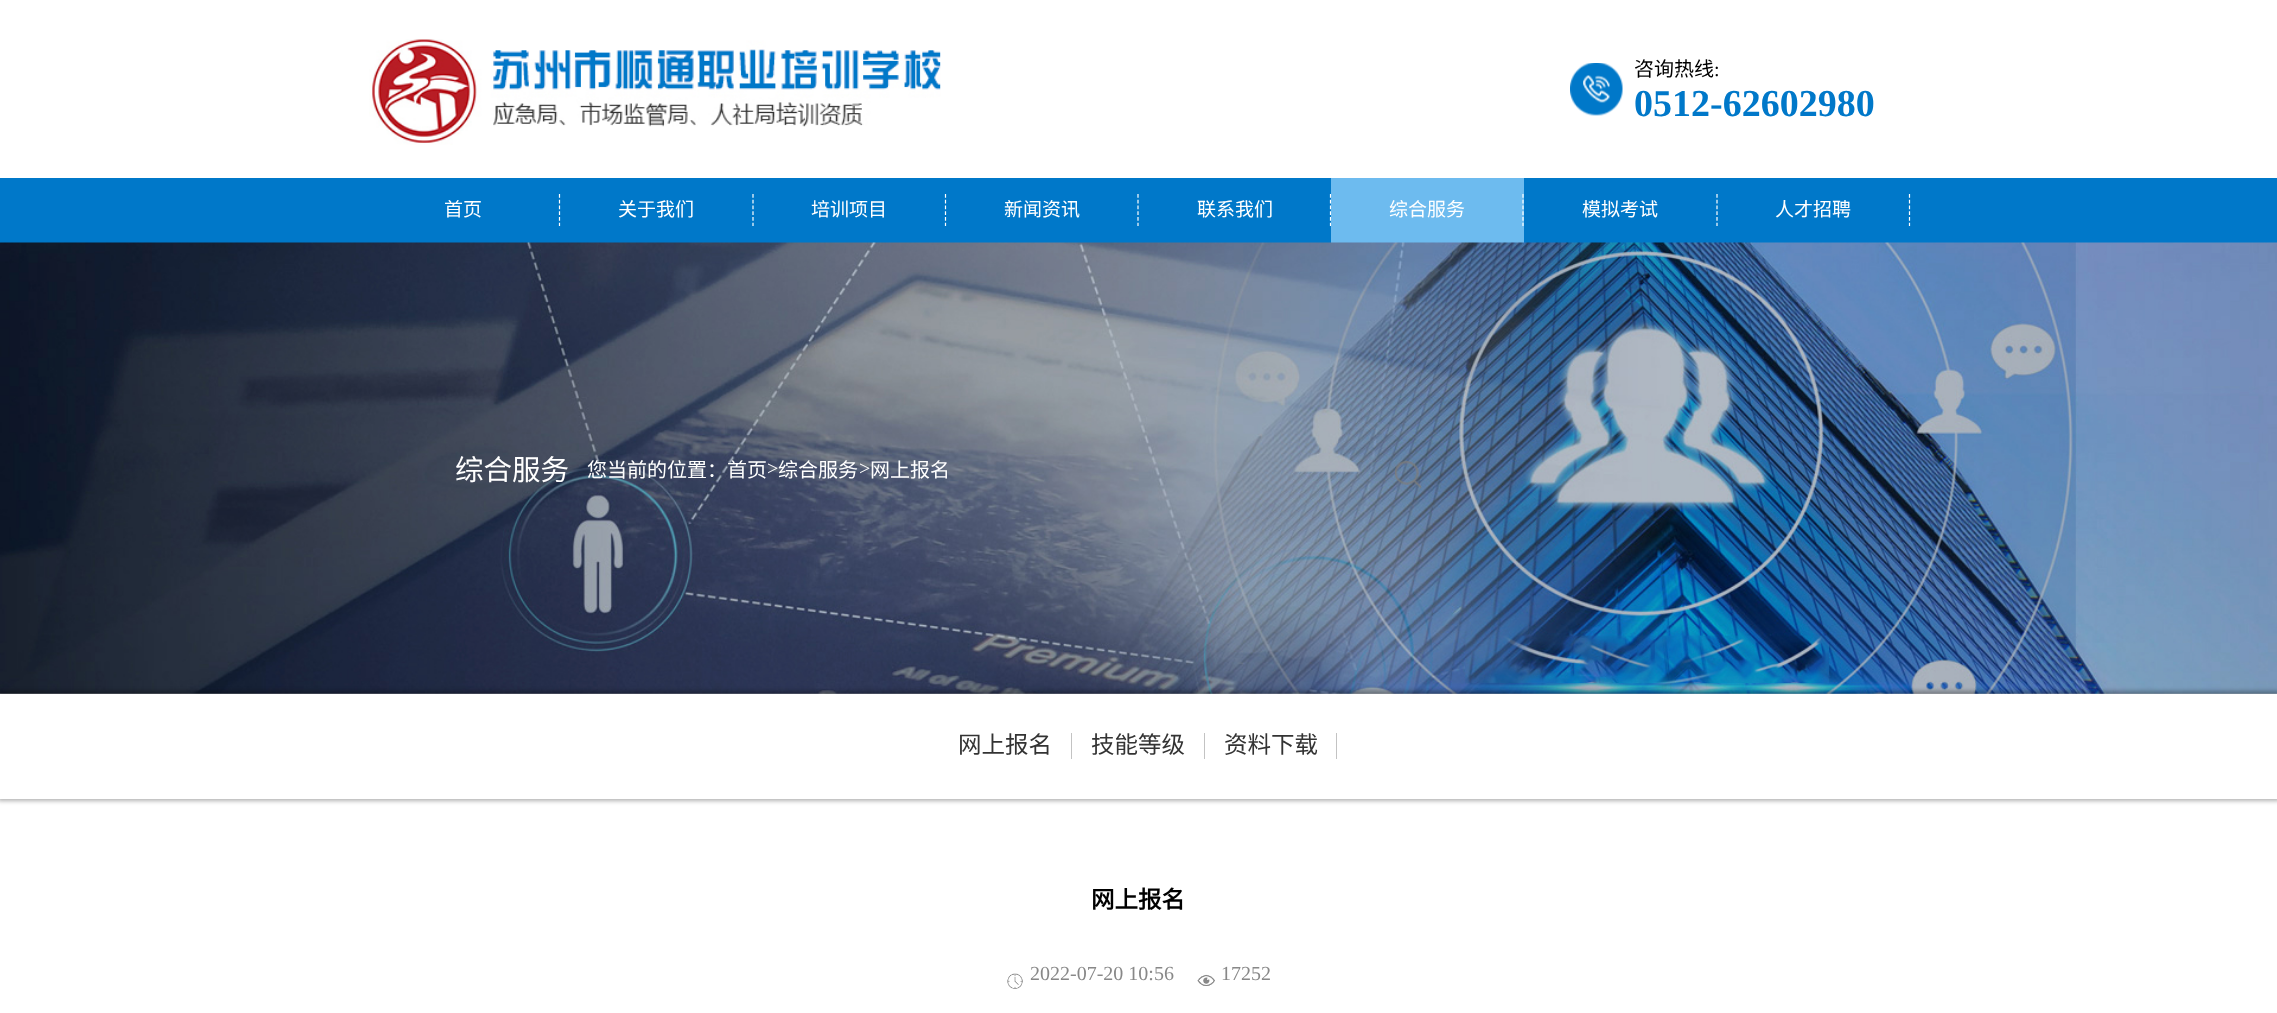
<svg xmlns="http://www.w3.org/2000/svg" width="2277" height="1013">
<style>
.a{font:20px Noto Sans CJK SC;fill:#000}
.b{font:20px Liberation Serif;fill:#000}
.c{font:bold 38px Liberation Serif;fill:#0078c9}
.d{font:19px Noto Sans CJK SC;fill:#fff}
.e{font:28.5px Noto Sans CJK SC;fill:#fff}
.f{font:20px Noto Sans CJK SC;fill:#fff}
.g{font:20px Liberation Serif;fill:#fff}
.h{font:23.5px Noto Sans CJK SC;fill:#333}
.i{font:bold 23.5px Noto Sans CJK SC;fill:#000}
.j{font:20px Liberation Serif;fill:#888}
</style>
<defs>
<clipPath id="clip1"><path d="M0 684h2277v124h-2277zm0 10h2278v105h-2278z" clip-rule="evenodd"/></clipPath>
</defs>
<rect width="100%" height="100%" fill="#fff"/>
<image href="1.png" x="369" y="39" width="572" height="106"/>
<image href="2.png" x="1570" y="63" width="53" height="53"/>
<path fill="#0078c9" d="M0 178h2277v65H0z"/>
<path fill="none" stroke="#fff" stroke-width="1.2" stroke-dasharray="3.75 2" d="M559.5 194v32"/>
<path fill="none" stroke="#fff" stroke-width="1.2" stroke-dasharray="3.75 2" d="M753 194v32"/>
<path fill="none" stroke="#fff" stroke-width="1.2" stroke-dasharray="3.75 2" d="M945.5 194v32"/>
<path fill="none" stroke="#fff" stroke-width="1.2" stroke-dasharray="3.75 2" d="M1138 194v32"/>
<path fill="none" stroke="#fff" stroke-width="1.2" stroke-dasharray="3.75 2" d="M1330.5 194v32"/>
<path fill="#6dbbef" d="M1331 178h193v65H1331z"/>
<path fill="none" stroke="#fff" stroke-width="1.2" stroke-dasharray="3.75 2" d="M1523 194v32"/>
<path fill="none" stroke="#fff" stroke-width="1.2" stroke-dasharray="3.75 2" d="M1717 194v32"/>
<path fill="none" stroke="#fff" stroke-width="1.2" stroke-dasharray="3.75 2" d="M1909.5 194v32"/>
<image href="3.png" x="0" y="242" width="2277" height="452"/>
<g clip-path="url(#clip1)">
<path fill="#0000004d" filter="blur(2px)" d="M-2 691h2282v110H-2z"/>
</g>
<path fill="#c3c3c3" d="M1071 733h1v26H1071z"/>
<path fill="#c3c3c3" d="M1204 733h1v26H1204z"/>
<path fill="#c3c3c3" d="M1336 733h1v26H1336z"/>
<image href="4.png" x="1007" y="973" width="16" height="16"/>
<image href="5.png" x="1197" y="974" width="18" height="12"/>
<text class="a" x="1634" y="76">咨询热线</text>
<text class="b" x="1714" y="76">:</text>
<text class="c" x="1634" y="116">0512-62602980</text>
<text class="d" x="444" y="216">首页</text>
<text class="d" x="618" y="216">关于我们</text>
<text class="d" x="811" y="216">培训项目</text>
<text class="d" x="1004" y="216">新闻资讯</text>
<text class="d" x="1197" y="216">联系我们</text>
<text class="d" x="1389" y="216">综合服务</text>
<text class="d" x="1582" y="216">模拟考试</text>
<text class="d" x="1775" y="216">人才招聘</text>
<text class="e" x="455" y="480">综合服务</text>
<text class="f" x="587" y="477">您当前的位置：首页</text>
<text class="g" x="767" y="475">&gt;</text>
<text class="f" x="778" y="477">综合服务</text>
<text class="g" x="859" y="475">&gt;</text>
<text class="f" x="870" y="477">网上报名</text>
<text class="h" x="958" y="753">网上报名</text>
<text class="h" x="1091" y="753">技能等级</text>
<text class="h" x="1224" y="753">资料下载</text>
<text class="i" x="1091" y="908">网上报名</text>
<text class="j" x="1030" y="980">2022-07-20 10:56</text>
<text class="j" x="1221" y="980">17252</text>
</svg>
